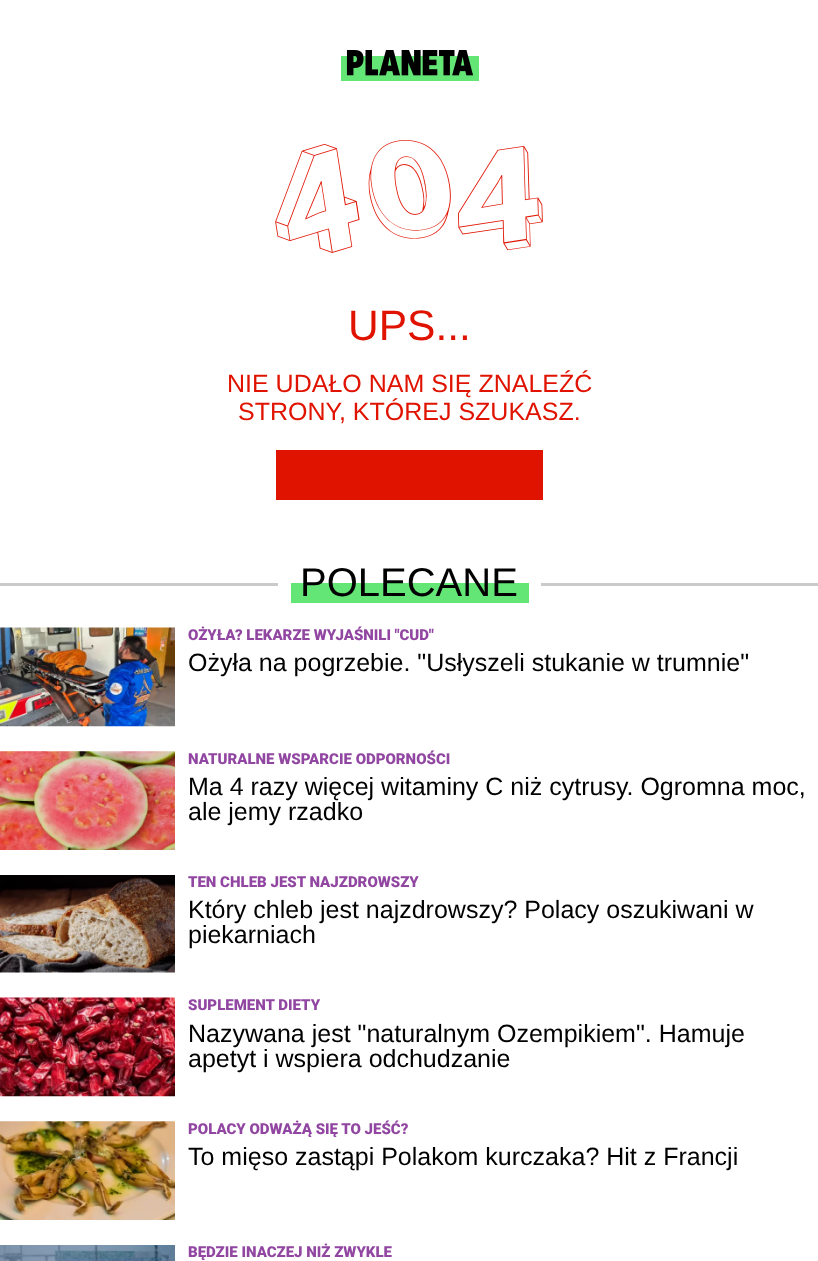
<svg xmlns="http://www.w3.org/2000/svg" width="818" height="1261">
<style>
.a{font:42.5px Liberation Sans;fill:#e01301}
.b{font:25px Liberation Sans;fill:#e01301}
.c{font:40px Liberation Sans;fill:#000}
.d{font:900 15px Roboto;fill:#9146a1}
.e{font:25px Liberation Sans;fill:#000}
</style>
<rect width="100%" height="100%" fill="#fff"/>
<image href="1.png" x="341" y="50" width="138" height="31"/>
<image href="2.png" x="275" y="140" width="268" height="113"/>
<path fill="#e01301" d="M276 450h267v50H276z"/>
<path fill="#cacaca" d="M0 583h818v3H0z"/>
<path fill="#fff" d="M278 583h263v3H278z"/>
<path fill="#64e676" d="M291 583h238v20H291z"/>
<image href="3.png" x="0" y="627" width="175" height="100"/>
<image href="4.png" x="0" y="751" width="175" height="99"/>
<image href="5.png" x="0" y="875" width="175" height="98"/>
<image href="6.png" x="0" y="997" width="175" height="100"/>
<image href="7.png" x="0" y="1121" width="175" height="99"/>
<image href="8.png" x="0" y="1245" width="175" height="16"/>
<text class="a" x="348" y="340">UPS...</text>
<text class="b" x="227" y="392">NIE UDAŁO NAM SIĘ ZNALEŹĆ</text>
<text class="b" x="238" y="420">STRONY, KTÓREJ SZUKASZ.</text>
<text class="c" x="300" y="596">POLECANE</text>
<text class="d" x="188" y="640">OŻYŁA? LEKARZE WYJAŚNILI "CUD"</text>
<text class="e" x="188" y="671">Ożyła na pogrzebie. "Usłyszeli stukanie w trumnie"</text>
<text class="d" x="188" y="764">NATURALNE WSPARCIE ODPORNOŚCI</text>
<text class="e" x="188" y="795">Ma 4 razy więcej witaminy C niż cytrusy. Ogromna moc,</text>
<text class="e" x="188" y="820">ale jemy rzadko</text>
<text class="d" x="188" y="887">TEN CHLEB JEST NAJZDROWSZY</text>
<text class="e" x="188" y="918">Który chleb jest najzdrowszy? Polacy oszukiwani w</text>
<text class="e" x="188" y="943">piekarniach</text>
<text class="d" x="188" y="1010">SUPLEMENT DIETY</text>
<text class="e" x="188" y="1042">Nazywana jest "naturalnym Ozempikiem". Hamuje</text>
<text class="e" x="188" y="1067">apetyt i wspiera odchudzanie</text>
<text class="d" x="188" y="1134">POLACY ODWAŻĄ SIĘ TO JEŚĆ?</text>
<text class="e" x="188" y="1165">To mięso zastąpi Polakom kurczaka? Hit z Francji</text>
<text class="d" x="188" y="1257">BĘDZIE INACZEJ NIŻ ZWYKLE</text>
</svg>
